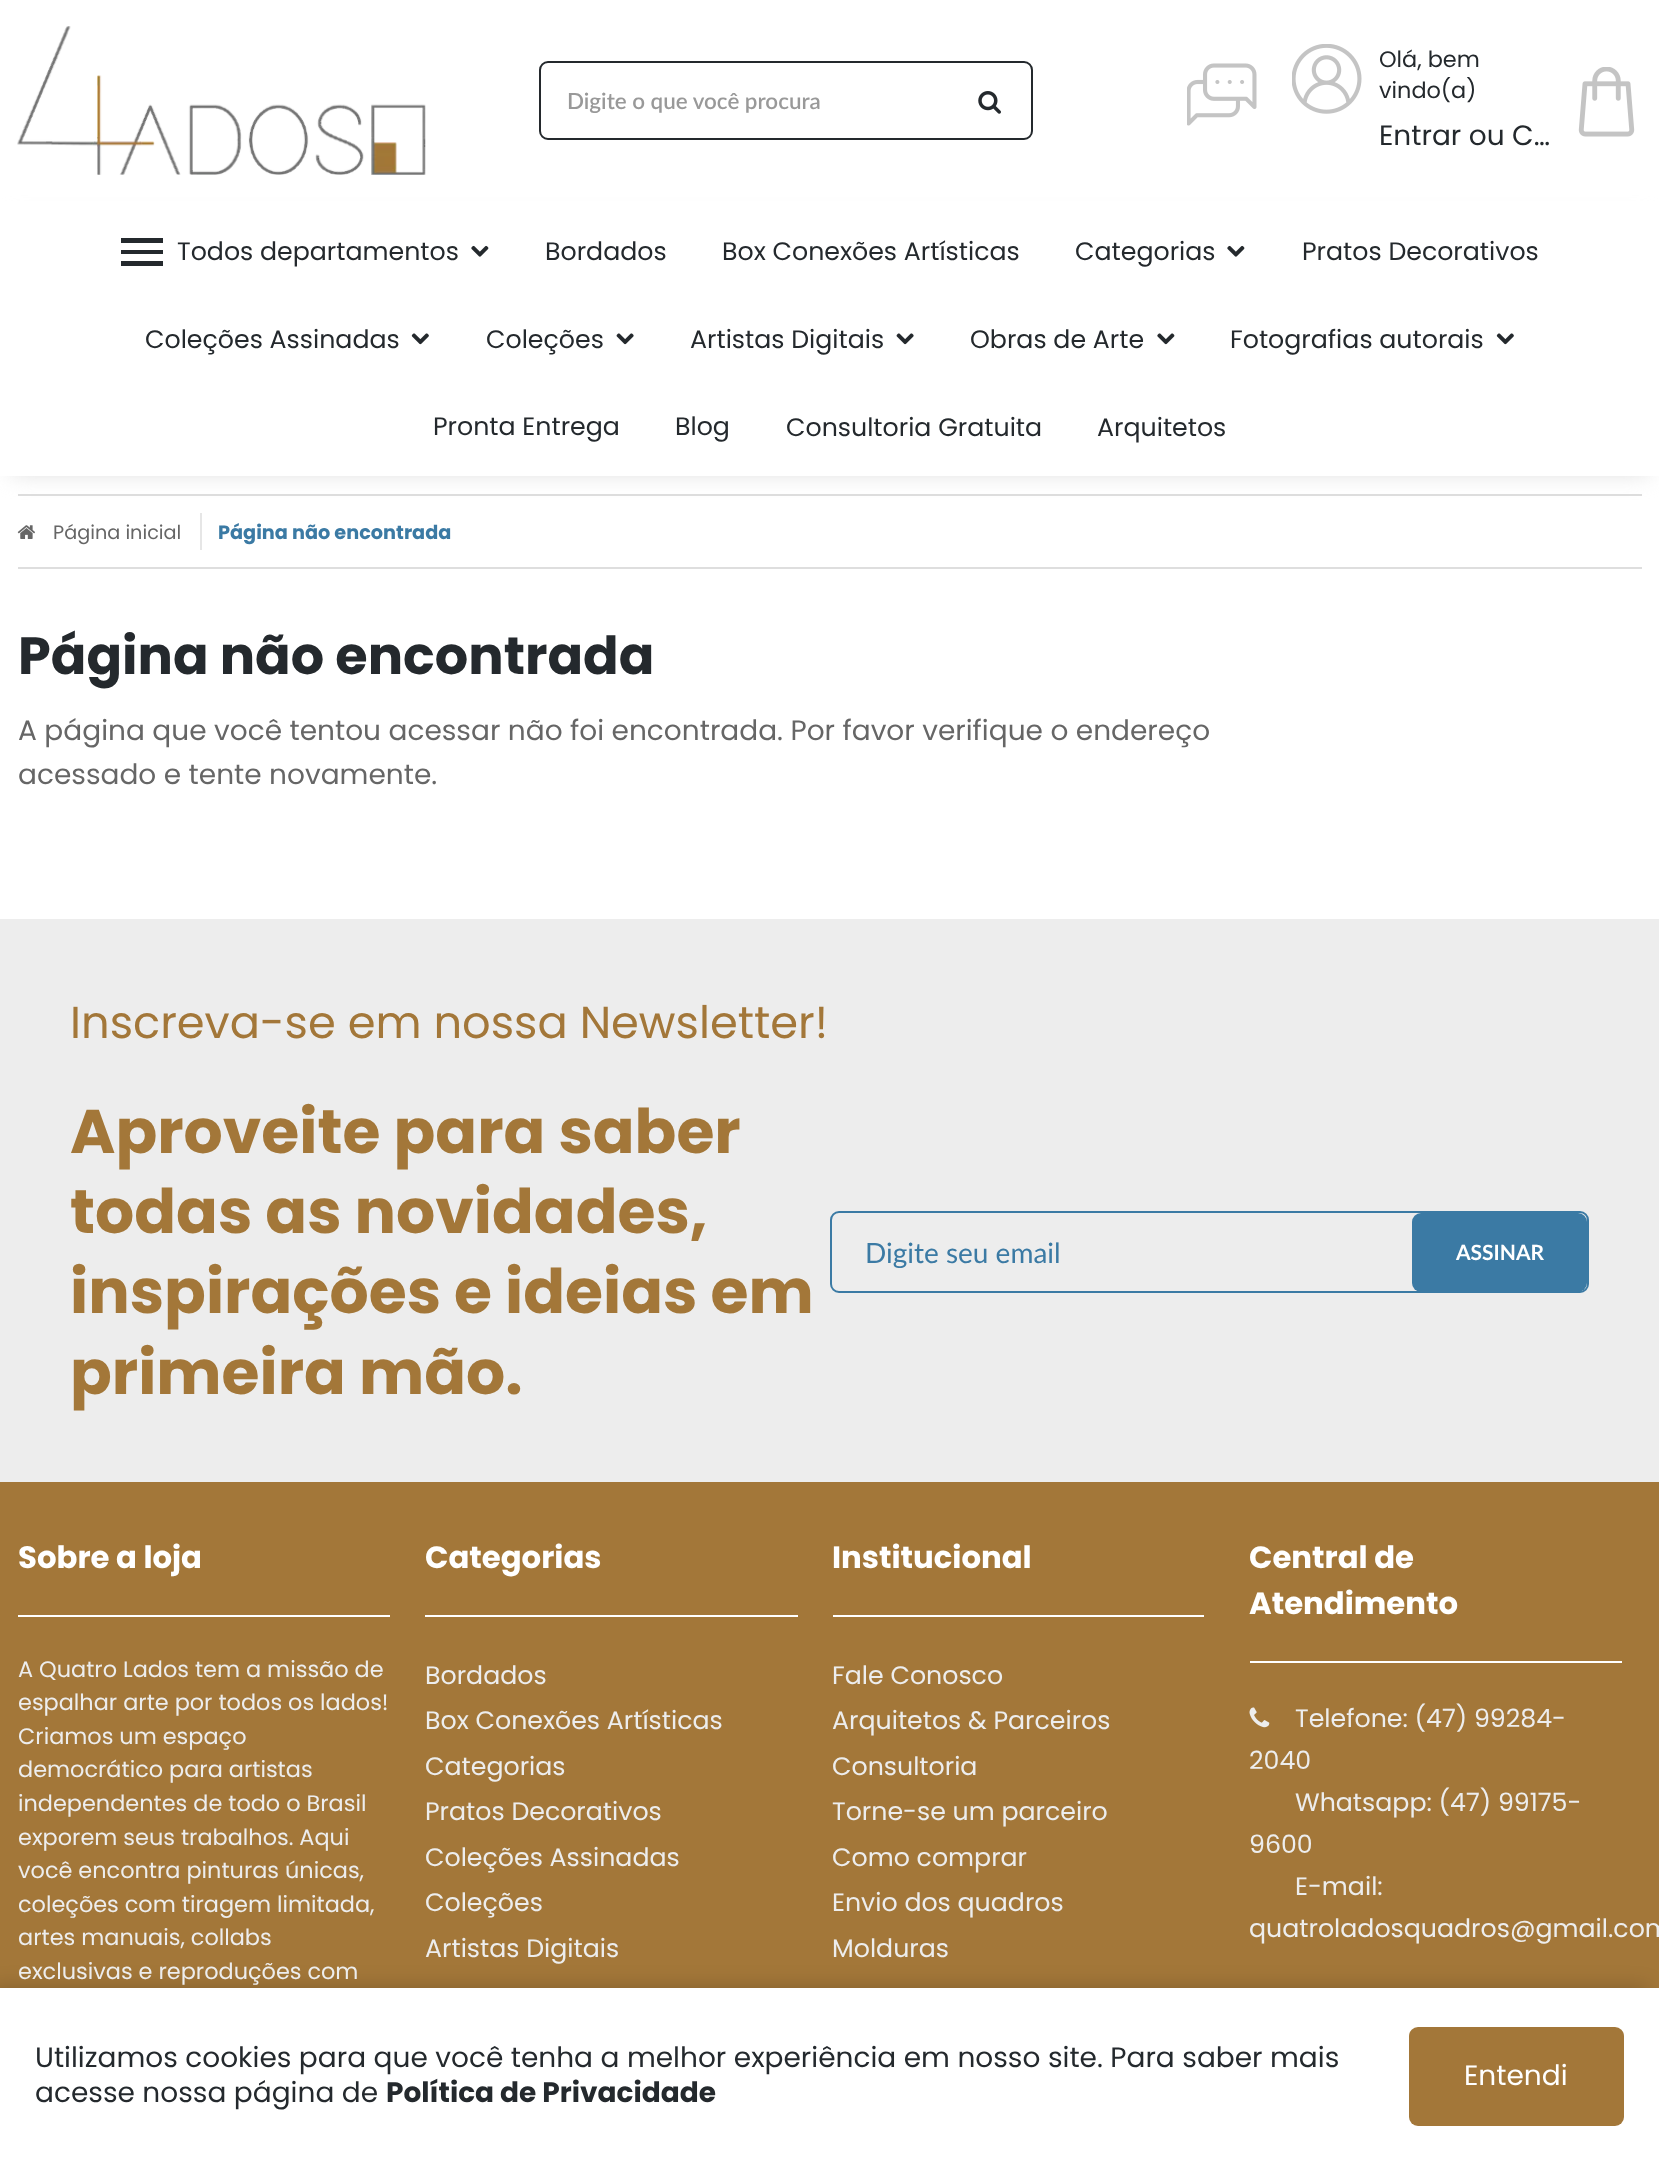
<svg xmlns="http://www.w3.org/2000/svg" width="1659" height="2163">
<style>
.a{font:600 22.4px Lato;fill:#999}
.b{font:22.4px Poppins;fill:#24292d}
.c{font:28px Poppins;fill:#24292d}
.d{font:25.25px Poppins;fill:#24292d}
.e{font:19.25px Poppins;fill:#666}
.f{font:bold 19.25px Poppins;fill:#3b7aa4}
.g{font:bold 52.5px Poppins;fill:#24292d}
.h{font:28px Poppins;fill:#666}
.i{font:44.75px Poppins;fill:#a37739}
.j{font:bold 61.6px Poppins;fill:#a37739}
.k{font:28px Lato;fill:#3b7aa4}
.l{font:bold 21px Lato;fill:#fff}
.m{font:bold 30.75px Poppins;fill:#fff}
.n{font:22.4px Poppins;fill:#ededed}
.o{font:25.25px Poppins;fill:#ededed}
.p{font:bold 28px Poppins;fill:#24292d}
.q{font:28px Poppins;fill:#fff}
</style>
<defs>
<clipPath id="clip1"><path d="M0 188h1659v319h-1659zm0 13h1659v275h-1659z" clip-rule="evenodd"/></clipPath>
</defs>
<rect width="100%" height="100%" fill="#fff"/>
<image href="1.png" x="17" y="26" width="409" height="149"/>
<rect fill="none" stroke="#24292d" stroke-width="2" x="540" y="62" width="492" height="77" rx="8"/>
<image href="2.png" x="978" y="91" width="23" height="23"/>
<image href="3.png" x="1187" y="63" width="70" height="63"/>
<image href="4.png" x="1292" y="44" width="70" height="70"/>
<image href="5.png" x="1578" y="67" width="57" height="70"/>
<g clip-path="url(#clip1)">
<path fill="#ddd" filter="blur(10.5px)" d="M11 221h1638v253H11z"/>
</g>
<path fill="#24292d" d="M163 266h-42v-5h42zm0-12h-42v-4h42zm0-11h-42v-5h42z"/>
<image href="6.png" x="471" y="245" width="18" height="12"/>
<image href="6.png" x="1227" y="245" width="18" height="12"/>
<image href="7.png" x="411" y="333" width="18" height="12"/>
<image href="8.png" x="616" y="333" width="18" height="12"/>
<image href="8.png" x="896" y="333" width="18" height="12"/>
<image href="9.png" x="1157" y="333" width="18" height="12"/>
<image href="7.png" x="1496" y="333" width="18" height="12"/>
<path fill="#ddd" d="M18 494h1624v2H18z"/>
<path fill="#dedede" d="M18 567h1624v2H18z"/>
<image href="10.png" x="17" y="525" width="18" height="14"/>
<path fill="#e6e6e6" d="M200 513h2v37H200z"/>
<path fill="#ededed" d="M0 919h1659v563H0z"/>
<rect fill="none" stroke="#3b7aa4" stroke-width="2" x="831" y="1212" width="757" height="80" rx="8"/>
<rect fill="#3b7aa4" x="1412" y="1213" width="175" height="79" rx="9"/>
<path fill="#a37739" d="M0 1482h1659v506H0z"/>
<path fill="#fff" d="M18 1615h372v2H18z"/>
<path fill="#fff" d="M425 1615h373v2H425z"/>
<path fill="#fff" d="M833 1615h371v2H833z"/>
<path fill="#fff" d="M1250 1661h372v2H1250z"/>
<image href="11.png" x="1249" y="1707" width="21" height="21"/>
<path fill="#00000033" filter="blur(10.5px)" d="M-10 1988h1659v175H-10z"/>
<path fill="#fff" d="M0 1988h1659v175H0z"/>
<rect fill="#a37739" x="1409" y="2027" width="215" height="99" rx="9"/>
<text class="a" x="567" y="109">Digite o que você procura</text>
<text class="b" x="1379" y="67">Olá, bem</text>
<text class="b" x="1379" y="98">vindo(a)</text>
<text class="c" x="1379" y="145">Entrar ou C…</text>
<text class="d" x="177" y="260">Todos departamentos</text>
<text class="d" x="545" y="260">Bordados</text>
<text class="d" x="722" y="260">Box Conexões Artísticas</text>
<text class="d" x="1075" y="260">Categorias</text>
<text class="d" x="1302" y="260">Pratos Decorativos</text>
<text class="d" x="145" y="348">Coleções Assinadas</text>
<text class="d" x="486" y="348">Coleções</text>
<text class="d" x="690" y="348">Artistas Digitais</text>
<text class="d" x="970" y="348">Obras de Arte</text>
<text class="d" x="1230" y="348">Fotografias autorais</text>
<text class="d" x="433" y="435">Pronta Entrega</text>
<text class="d" x="675" y="435">Blog</text>
<text class="d" x="786" y="436">Consultoria Gratuita</text>
<text class="d" x="1097" y="436">Arquitetos</text>
<text class="e" x="53" y="539">Página inicial</text>
<text class="f" x="218" y="539">Página não encontrada</text>
<text class="g" x="18" y="674">Página não encontrada</text>
<text class="h" x="18" y="740">A página que você tentou acessar não foi encontrada. Por favor verifique o endereço</text>
<text class="h" x="18" y="784">acessado e tente novamente.</text>
<text class="i" x="70" y="1038">Inscreva-se em nossa Newsletter!</text>
<text class="j" x="70" y="1153">Aproveite para saber</text>
<text class="j" x="70" y="1233">todas as novidades,</text>
<text class="j" x="70" y="1313">inspirações e ideias em</text>
<text class="j" x="70" y="1394">primeira mão.</text>
<text class="k" x="865" y="1263">Digite seu email</text>
<text class="l" x="1456" y="1260">ASSINAR</text>
<text class="m" x="18" y="1568">Sobre a loja</text>
<text class="n" x="18" y="1677">A Quatro Lados tem a missão de</text>
<text class="n" x="18" y="1710">espalhar arte por todos os lados!</text>
<text class="n" x="18" y="1744">Criamos um espaço</text>
<text class="n" x="18" y="1777">democrático para artistas</text>
<text class="n" x="18" y="1811">independentes de todo o Brasil</text>
<text class="n" x="18" y="1845">exporem seus trabalhos. Aqui</text>
<text class="n" x="18" y="1878">você encontra pinturas únicas,</text>
<text class="n" x="18" y="1912">coleções com tiragem limitada,</text>
<text class="n" x="18" y="1945">artes manuais, collabs</text>
<text class="n" x="18" y="1979">exclusivas e reproduções com</text>
<text class="m" x="425" y="1568">Categorias</text>
<text class="o" x="425" y="1684">Bordados</text>
<text class="o" x="425" y="1729">Box Conexões Artísticas</text>
<text class="o" x="425" y="1775">Categorias</text>
<text class="o" x="425" y="1820">Pratos Decorativos</text>
<text class="o" x="425" y="1866">Coleções Assinadas</text>
<text class="o" x="425" y="1911">Coleções</text>
<text class="o" x="425" y="1957">Artistas Digitais</text>
<text class="m" x="832" y="1568">Institucional</text>
<text class="o" x="832" y="1684">Fale Conosco</text>
<text class="o" x="832" y="1729">Arquitetos &amp; Parceiros</text>
<text class="o" x="832" y="1775">Consultoria</text>
<text class="o" x="832" y="1820">Torne-se um parceiro</text>
<text class="o" x="832" y="1866">Como comprar</text>
<text class="o" x="832" y="1911">Envio dos quadros</text>
<text class="o" x="832" y="1957">Molduras</text>
<text class="m" x="1249" y="1568">Central de</text>
<text class="m" x="1249" y="1614">Atendimento</text>
<text class="o" x="1295" y="1727">Telefone: (47) 99284-</text>
<text class="o" x="1249" y="1769">2040</text>
<text class="o" x="1295" y="1811">Whatsapp: (47) 99175-</text>
<text class="o" x="1249" y="1853">9600</text>
<text class="o" x="1295" y="1895">E-mail:</text>
<text class="o" x="1249" y="1937">quatroladosquadros@gmail.com</text>
<text class="c" x="35" y="2067">Utilizamos cookies para que você tenha a melhor experiência em nosso site. Para saber mais</text>
<text class="c" x="35" y="2102">acesse nossa página de</text>
<text class="p" x="386" y="2102">Política de Privacidade</text>
<text class="q" x="1464" y="2085">Entendi</text>
</svg>
